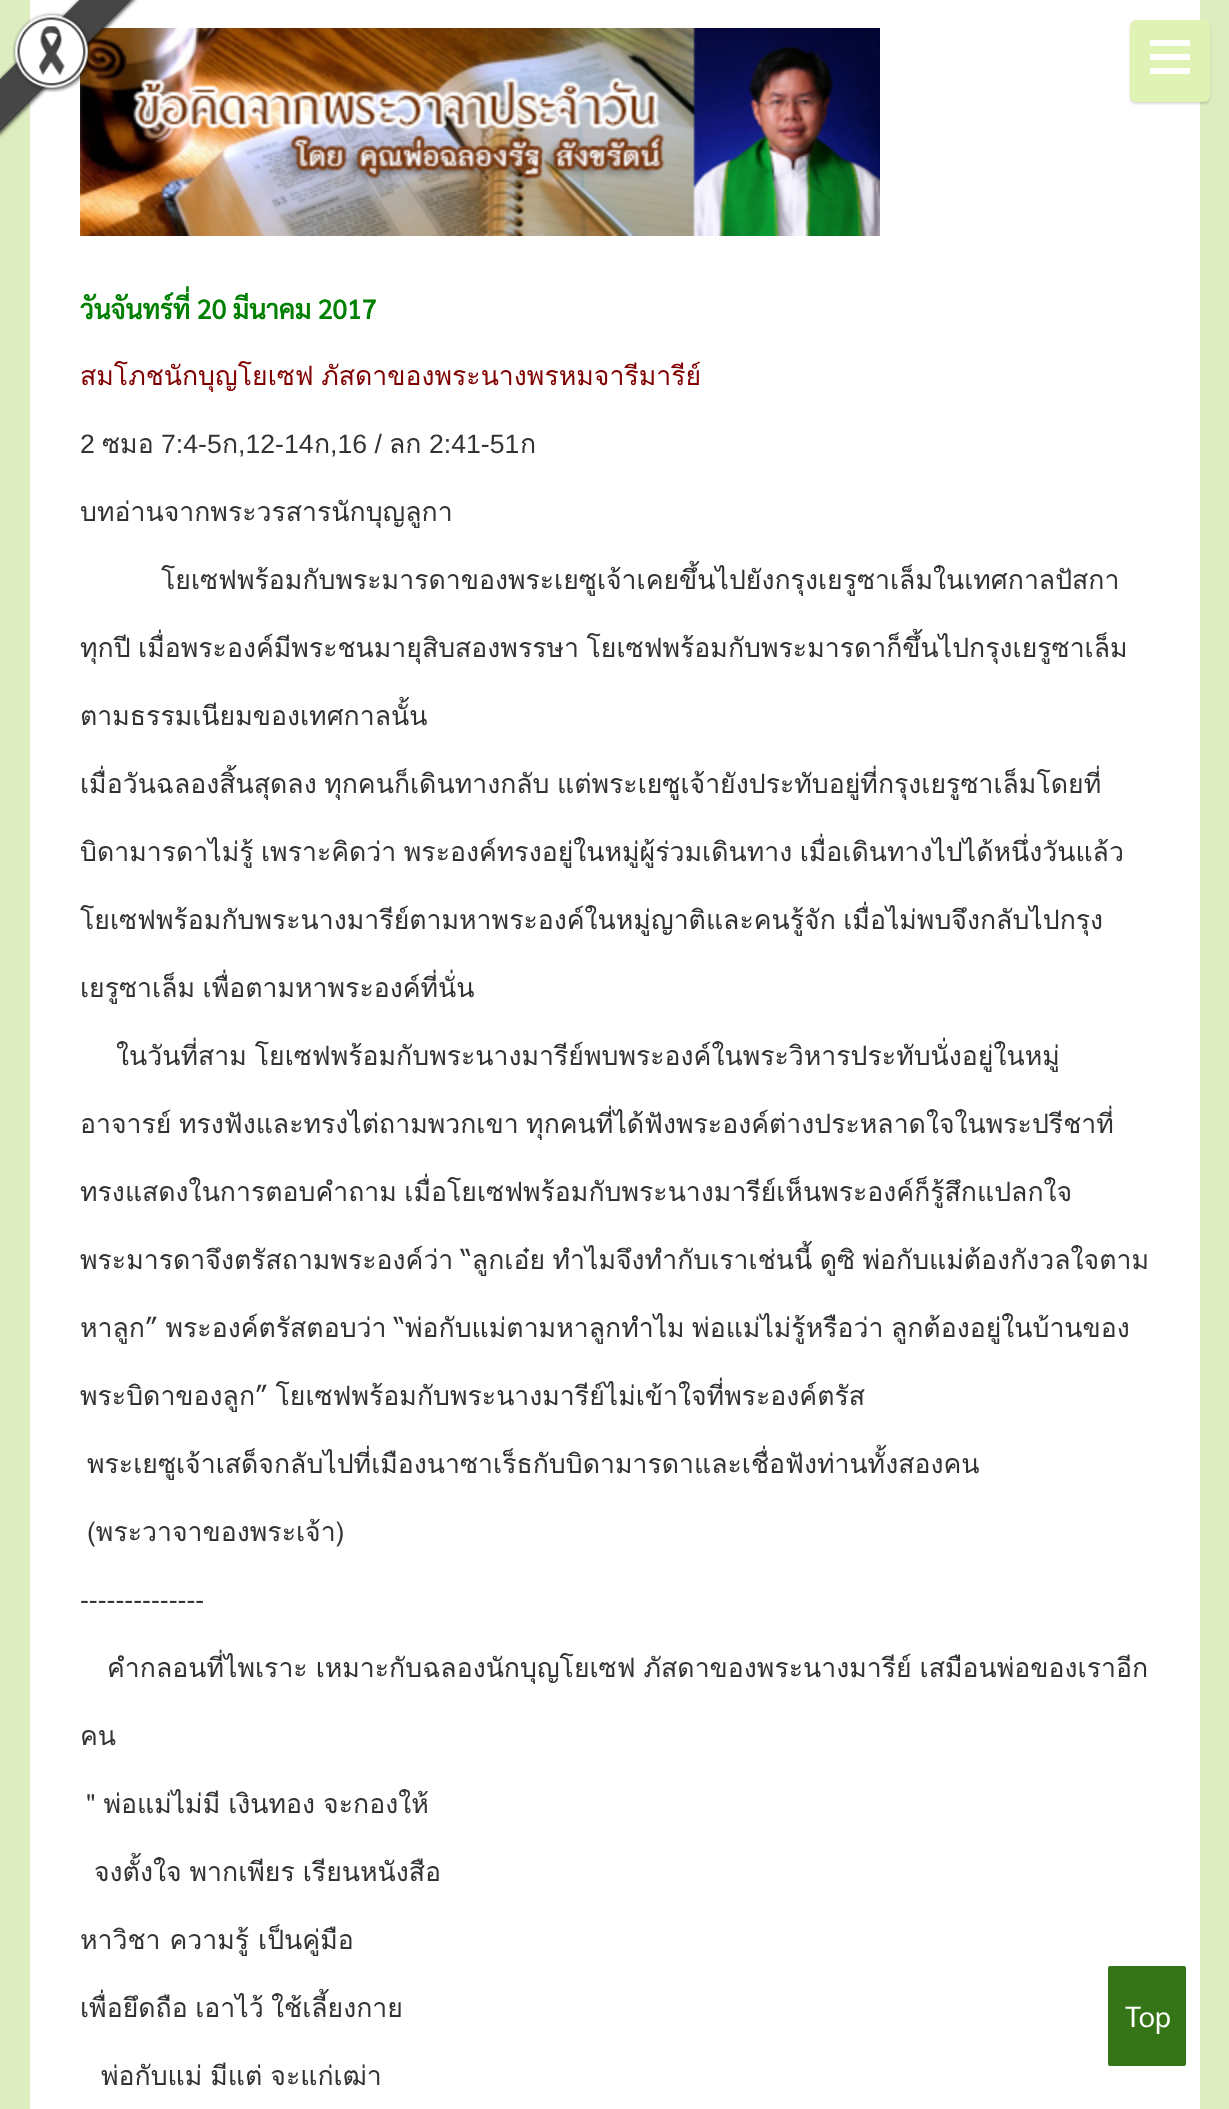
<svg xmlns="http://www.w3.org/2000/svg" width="1229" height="2109">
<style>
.a{font:bold 26.65px Sarabun;fill:#008000}
.b{font:26.65px Loma;fill:#800000}
.c{font:26.65px Liberation Sans;fill:#333}
.d{font:26.65px Loma;fill:#333}
.e{font:29px Sarabun;fill:#fff}
</style>
<rect width="100%" height="100%" fill="#deedc0"/>
<path fill="#fff" d="M30 0h1170v2109H30z"/>
<image href="3.png" x="80" y="28" width="800" height="208"/>
<image href="1.png" x="0" y="0" width="137" height="137"/>
<image href="2.png" x="0" y="0" width="137" height="137"/>
<rect fill="#00000026" filter="blur(1px)" x="1130" y="22" width="80" height="82" rx="6"/>
<rect fill="#e1f2b5" x="1130" y="20" width="80" height="82" rx="6"/>
<path fill="#fff" d="M1150 40h40v6H1150z"/>
<path fill="#fff" d="M1150 54h40v6H1150z"/>
<path fill="#fff" d="M1150 68h40v6H1150z"/>
<rect fill="#357517" stroke="#fff" stroke-width="4" x="1106" y="1964" width="82" height="104" rx="4"/>
<text class="a" x="80" y="319">วันจันทร์ที่ 20 มีนาคม 2017</text>
<text class="b" x="80" y="385" word-spacing="-1.5">สมโภชนักบุญโยเซฟ ภัสดาของพระนางพรหมจารีมารีย์</text>
<text class="c" x="80" y="453">2</text>
<text class="d" x="102" y="453">ซมอ</text>
<text class="c" x="161" y="453">7:4-5</text>
<text class="d" x="222" y="453">ก</text>
<text class="c" x="238" y="453">,12-14</text>
<text class="d" x="314" y="453">ก</text>
<text class="c" x="330" y="453">,16 /</text>
<text class="d" x="389" y="453">ลก</text>
<text class="c" x="429" y="453">2:41-51</text>
<text class="d" x="520" y="453">ก</text>
<text class="d" x="80" y="521">บทอ่านจากพระวรสารนักบุญลูกา</text>
<text class="d" x="161" y="589">โยเซฟพร้อมกับพระมารดาของพระเยซูเจ้าเคยขึ้นไปยังกรุงเยรูซาเล็มในเทศกาลปัสกา</text>
<text class="d" x="80" y="657" word-spacing="-1.5">ทุกปี เมื่อพระองค์มีพระชนมายุสิบสองพรรษา โยเซฟพร้อมกับพระมารดาก็ขึ้นไปกรุงเยรูซาเล็ม</text>
<text class="d" x="80" y="725">ตามธรรมเนียมของเทศกาลนั้น</text>
<text class="d" x="80" y="793" word-spacing="-1.5">เมื่อวันฉลองสิ้นสุดลง ทุกคนก็เดินทางกลับ แต่พระเยซูเจ้ายังประทับอยู่ที่กรุงเยรูซาเล็มโดยที่</text>
<text class="d" x="80" y="861" word-spacing="-1.5">บิดามารดาไม่รู้ เพราะคิดว่า พระองค์ทรงอยู่ในหมู่ผู้ร่วมเดินทาง เมื่อเดินทางไปได้หนึ่งวันแล้ว</text>
<text class="d" x="80" y="929" word-spacing="-1.5">โยเซฟพร้อมกับพระนางมารีย์ตามหาพระองค์ในหมู่ญาติและคนรู้จัก เมื่อไม่พบจึงกลับไปกรุง</text>
<text class="d" x="80" y="997" word-spacing="-1.5">เยรูซาเล็ม เพื่อตามหาพระองค์ที่นั่น</text>
<text class="d" x="116" y="1065" word-spacing="-1">ในวันที่สาม โยเซฟพร้อมกับพระนางมารีย์พบพระองค์ในพระวิหารประทับนั่งอยู่ในหมู่</text>
<text class="d" x="80" y="1133" word-spacing="-1.5">อาจารย์ ทรงฟังและทรงไต่ถามพวกเขา ทุกคนที่ได้ฟังพระองค์ต่างประหลาดใจในพระปรีชาที่</text>
<text class="d" x="80" y="1201" word-spacing="-1.5">ทรงแสดงในการตอบคำถาม เมื่อโยเซฟพร้อมกับพระนางมารีย์เห็นพระองค์ก็รู้สึกแปลกใจ</text>
<text class="d" x="80" y="1269" word-spacing="-1.5">พระมารดาจึงตรัสถามพระองค์ว่า “ลูกเอ๋ย ทำไมจึงทำกับเราเช่นนี้ ดูซิ พ่อกับแม่ต้องกังวลใจตาม</text>
<text class="d" x="80" y="1337" word-spacing="-1.5">หาลูก” พระองค์ตรัสตอบว่า “พ่อกับแม่ตามหาลูกทำไม พ่อแม่ไม่รู้หรือว่า ลูกต้องอยู่ในบ้านของ</text>
<text class="d" x="80" y="1405" word-spacing="-1.5">พระบิดาของลูก” โยเซฟพร้อมกับพระนางมารีย์ไม่เข้าใจที่พระองค์ตรัส</text>
<text class="d" x="87" y="1473">พระเยซูเจ้าเสด็จกลับไปที่เมืองนาซาเร็ธกับบิดามารดาและเชื่อฟังท่านทั้งสองคน</text>
<text class="d" x="87" y="1541">(พระวาจาของพระเจ้า)</text>
<text class="c" x="80" y="1609">--------------</text>
<text class="d" x="107" y="1677" word-spacing="-1">คำกลอนที่ไพเราะ เหมาะกับฉลองนักบุญโยเซฟ ภัสดาของพระนางมารีย์ เสมือนพ่อของเราอีก</text>
<text class="d" x="80" y="1745">คน</text>
<text class="d" x="86" y="1813" word-spacing="-1">" พ่อแม่ไม่มี เงินทอง จะกองให้</text>
<text class="d" x="94" y="1881" word-spacing="-1">จงตั้งใจ พากเพียร เรียนหนังสือ</text>
<text class="d" x="80" y="1949">หาวิชา ความรู้ เป็นคู่มือ</text>
<text class="d" x="80" y="2017" word-spacing="-1.5">เพื่อยึดถือ เอาไว้ ใช้เลี้ยงกาย</text>
<text class="d" x="101" y="2085" word-spacing="-1">พ่อกับแม่ มีแต่ จะแก่เฒ่า</text>
<text class="e" x="1125" y="2027">Top</text>
</svg>
